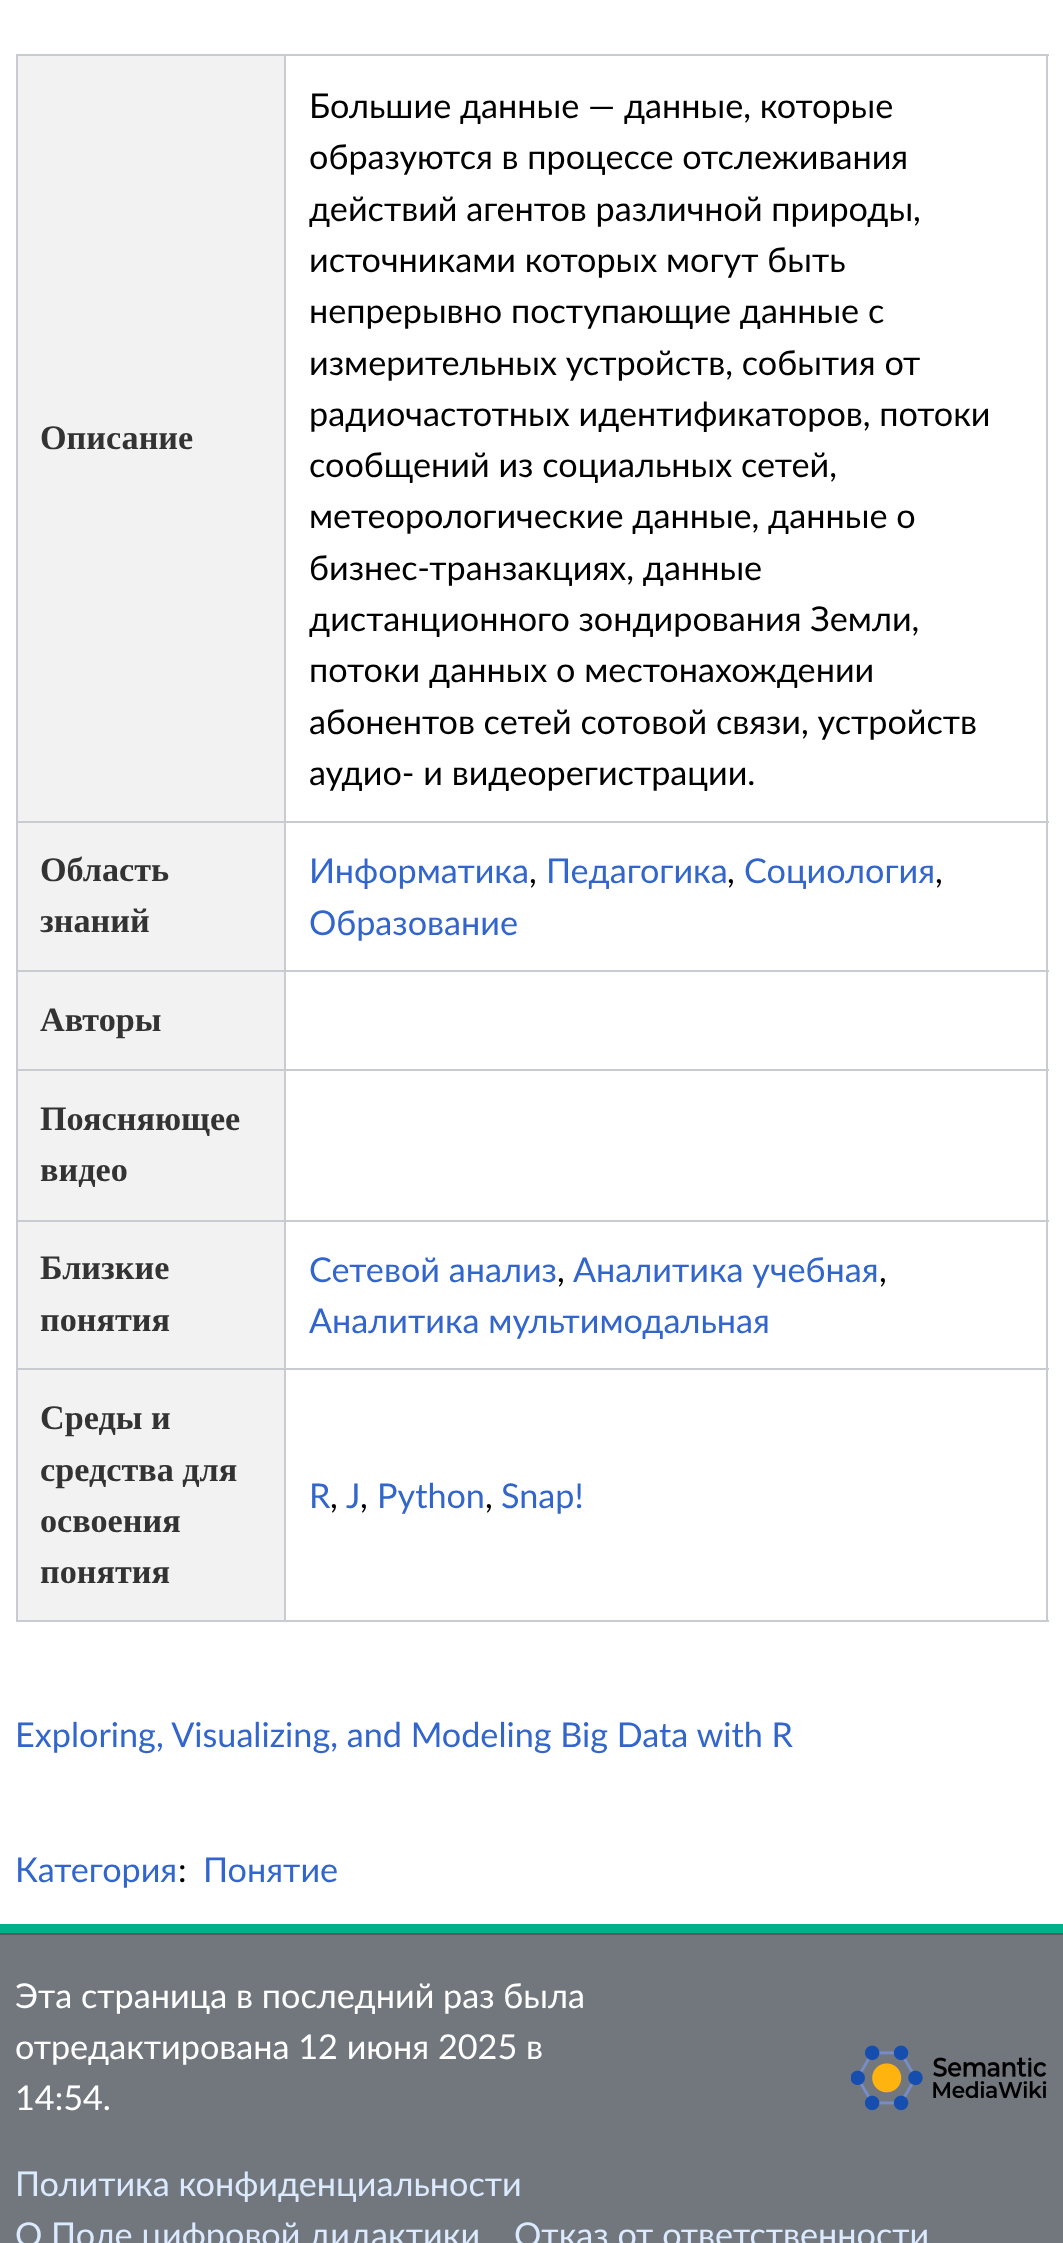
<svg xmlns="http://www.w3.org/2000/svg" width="1063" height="2243">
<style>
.a{font:bold 34.2px Liberation Serif;fill:#333}
.b{font:34.2px Lato;fill:#000}
.c{font:34.2px Lato;fill:#36c}
.d{font:34.2px Lato;fill:#fff}
.e{font:34.2px Lato;fill:#dbeaff}
</style>
<rect width="100%" height="100%" fill="#72777d"/>
<path fill="#00af89" d="M0 1924h1063v9H0z"/>
<path fill="#fff" d="M0 0h1063v1924H0z"/>
<path fill="#f2f2f2" d="M18 56h266v765H18z"/>
<path fill="#c8ccd1" d="M284 54h765v2H284z"/>
<path fill="#c8ccd1" d="M284 821h765v2H284z"/>
<path fill="#c8ccd1" d="M284 970h765v2H284z"/>
<path fill="#c8ccd1" d="M284 1069h765v2H284z"/>
<path fill="#c8ccd1" d="M284 1220h765v2H284z"/>
<path fill="#c8ccd1" d="M284 1368h765v2H284z"/>
<path fill="#c8ccd1" d="M1046 1368h2v254H1046z"/>
<path fill="#c8ccd1" d="M284 1620h765v2H284z"/>
<path fill="#c8ccd1" d="M284 1368h2v254H284z"/>
<path fill="#c8ccd1" d="M16 1368h270v2H16z"/>
<path fill="#c8ccd1" d="M284 1220h2v150H284z"/>
<path fill="#c8ccd1" d="M16 1220h270v2H16z"/>
<path fill="#c8ccd1" d="M284 1069h2v153H284z"/>
<path fill="#c8ccd1" d="M16 1069h270v2H16z"/>
<path fill="#c8ccd1" d="M284 970h2v101H284z"/>
<path fill="#c8ccd1" d="M16 970h270v2H16z"/>
<path fill="#c8ccd1" d="M284 821h2v151H284z"/>
<path fill="#c8ccd1" d="M16 821h270v2H16z"/>
<path fill="#c8ccd1" d="M284 54h2v770H284z"/>
<path fill="#c8ccd1" d="M16 54h270v2H16z"/>
<path fill="#c8ccd1" d="M16 1620h270v2H16z"/>
<path fill="#c8ccd1" d="M16 1368h2v254H16z"/>
<path fill="#c8ccd1" d="M16 1220h2v150H16z"/>
<path fill="#c8ccd1" d="M16 1069h2v153H16z"/>
<path fill="#c8ccd1" d="M16 970h2v101H16z"/>
<path fill="#c8ccd1" d="M16 821h2v151H16z"/>
<path fill="#c8ccd1" d="M16 54h2v770H16z"/>
<path fill="#c8ccd1" d="M1046 1220h2v150H1046z"/>
<path fill="#c8ccd1" d="M1046 1069h2v153H1046z"/>
<path fill="#c8ccd1" d="M1046 970h2v101H1046z"/>
<path fill="#c8ccd1" d="M1046 821h2v151H1046z"/>
<path fill="#c8ccd1" d="M1046 54h2v770H1046z"/>
<path fill="#f2f2f2" d="M18 823h266v147H18z"/>
<path fill="#f2f2f2" d="M18 972h266v97H18z"/>
<path fill="#f2f2f2" d="M18 1071h266v149H18z"/>
<path fill="#f2f2f2" d="M18 1222h266v146H18z"/>
<path fill="#f2f2f2" d="M18 1370h266v250H18z"/>
<path fill="#54595d" d="M0 1933h1063v2H0z"/>
<image href="1.png" x="851" y="2045" width="196" height="66"/>
<text class="a" x="40" y="449">Описание</text>
<text class="b" x="309" y="118">Большие данные — данные, которые</text>
<text class="b" x="309" y="169">образуются в процессе отслеживания</text>
<text class="b" x="309" y="221">действий агентов различной природы,</text>
<text class="b" x="309" y="272">источниками которых могут быть</text>
<text class="b" x="309" y="323">непрерывно поступающие данные с</text>
<text class="b" x="309" y="375">измерительных устройств, события от</text>
<text class="b" x="309" y="426">радиочастотных идентификаторов, потоки</text>
<text class="b" x="309" y="477">сообщений из социальных сетей,</text>
<text class="b" x="309" y="528">метеорологические данные, данные о</text>
<text class="b" x="309" y="580">бизнес-транзакциях, данные</text>
<text class="b" x="309" y="631">дистанционного зондирования Земли,</text>
<text class="b" x="309" y="682">потоки данных о местонахождении</text>
<text class="b" x="309" y="734">абонентов сетей сотовой связи, устройств</text>
<text class="b" x="309" y="785">аудио- и видеорегистрации.</text>
<text class="a" x="40" y="881">Область</text>
<text class="a" x="40" y="932">знаний</text>
<text class="c" x="309" y="883">Информатика</text>
<text class="b" x="529" y="883">,</text>
<text class="c" x="546" y="883">Педагогика</text>
<text class="b" x="727" y="883">,</text>
<text class="c" x="744" y="883">Социология</text>
<text class="b" x="935" y="883">,</text>
<text class="c" x="309" y="935">Образование</text>
<text class="a" x="40" y="1031">Авторы</text>
<text class="a" x="40" y="1130">Поясняющее</text>
<text class="a" x="40" y="1181">видео</text>
<text class="a" x="40" y="1279">Близкие</text>
<text class="a" x="40" y="1331">понятия</text>
<text class="c" x="309" y="1282">Сетевой анализ</text>
<text class="b" x="557" y="1282">,</text>
<text class="c" x="573" y="1282">Аналитика учебная</text>
<text class="b" x="879" y="1282">,</text>
<text class="c" x="309" y="1333">Аналитика мультимодальная</text>
<text class="a" x="40" y="1429">Среды и</text>
<text class="a" x="40" y="1481">средства для</text>
<text class="a" x="40" y="1532">освоения</text>
<text class="a" x="40" y="1583">понятия</text>
<text class="c" x="309" y="1508">R</text>
<text class="b" x="330" y="1508">,</text>
<text class="c" x="346" y="1508">J</text>
<text class="b" x="360" y="1508">,</text>
<text class="c" x="377" y="1508">Python</text>
<text class="b" x="485" y="1508">,</text>
<text class="c" x="501" y="1508">Snap!</text>
<text class="c" x="15" y="1747">Exploring, Visualizing, and Modeling Big Data with R</text>
<text class="c" x="15" y="1882">Категория</text>
<text class="b" x="178" y="1882">:</text>
<text class="c" x="203" y="1882">Понятие</text>
<text class="d" x="15" y="2008">Эта страница в последний раз была</text>
<text class="d" x="15" y="2059">отредактирована 12 июня 2025 в</text>
<text class="d" x="15" y="2110">14:54.</text>
<text class="e" x="15" y="2196">Политика конфиденциальности</text>
<text class="e" x="15" y="2247">О Поле цифровой дидактики</text>
<text class="e" x="514" y="2247">Отказ от ответственности</text>
</svg>
